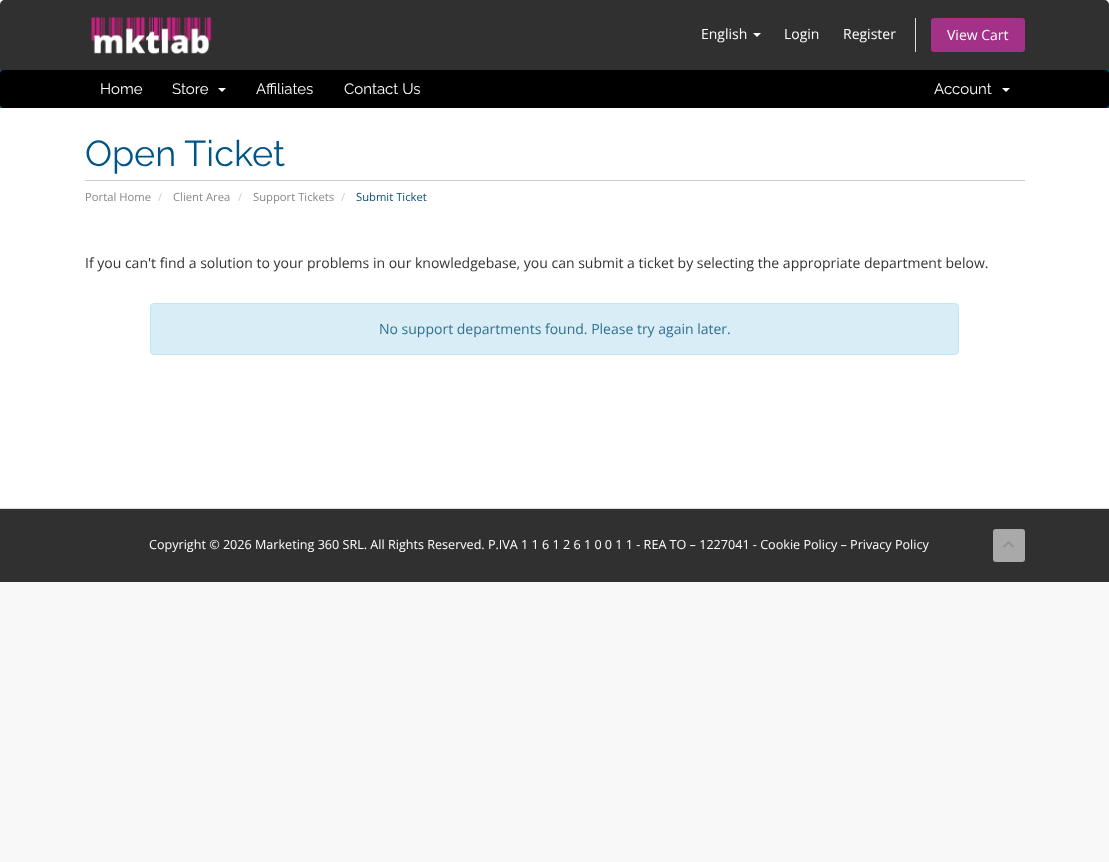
<svg xmlns="http://www.w3.org/2000/svg" width="1109" height="862">
<style>
.a{font:14px Open Sans;fill:#fff}
.b{font:15px Raleway;fill:#fff}
.c{font:36px Raleway;fill:#058}
.d{font:11.25px Open Sans;fill:#888}
.e{font:11.25px Open Sans;fill:#ccc}
.f{font:11.25px Open Sans;fill:#0e5077}
.g{font:14px Open Sans;fill:#333}
.h{font:14px Open Sans;fill:#31708f}
.i{font:12.6px Open Sans;fill:#fff}
</style>
<rect width="100%" height="100%" fill="#f8f8f8"/>
<path fill="#303030" d="M5 0h1099c3 0 5 2 5 5v65h-1109v-65c0-3 2-5 5-5z"/>
<image href="1.png" x="91" y="16" width="121" height="39"/>
<path fill="#fff" d="M753 33h8l-4 4z"/>
<path fill="#ddd" d="M915 18h1v34H915z"/>
<rect fill="#a33187" x="931" y="18" width="94" height="34" rx="3"/>
<path fill="#006687" d="M0 70h1109v38H0z"/>
<rect fill="#000" y="70" width="1109" height="38" rx="4"/>
<path fill="#fff" d="M218 88h8l-4 4z"/>
<path fill="#fff" d="M1002 88h8l-4 4z"/>
<path fill="#fff" d="M0 108h1109v400H0z"/>
<path fill="#ccc" d="M85 180h940v1H85z"/>
<rect fill="#d9edf7" stroke="#bce8f1" x="150.5" y="303.5" width="808" height="51" rx="3.5"/>
<path fill="#303030" d="M0 509h1109v73H0z"/>
<path fill="#ddd" d="M0 508h1109v1H0z"/>
<rect fill="#a9a9a9" x="993" y="529" width="32" height="33" rx="3"/>
<image href="2.png" x="1003" y="541" width="11" height="7"/>
<text class="a" x="701" y="39">English</text>
<text class="a" x="784" y="39">Login</text>
<text class="a" x="843" y="39">Register</text>
<text class="a" x="947" y="40">View Cart</text>
<text class="b" x="100" y="94">Home</text>
<text class="b" x="172" y="94">Store</text>
<text class="b" x="256" y="94">Affiliates</text>
<text class="b" x="344" y="94">Contact Us</text>
<text class="b" x="934" y="94">Account</text>
<text class="c" x="85" y="166">Open Ticket</text>
<text class="d" x="85" y="201">Portal Home</text>
<text class="e" x="158" y="201">/</text>
<text class="d" x="173" y="201">Client Area</text>
<text class="e" x="238" y="201">/</text>
<text class="d" x="253" y="201">Support Tickets</text>
<text class="e" x="341" y="201">/</text>
<text class="f" x="356" y="201">Submit Ticket</text>
<text class="g" x="85" y="268">If you can't find a solution to your problems in our knowledgebase, you can submit a ticket by selecting the appropriate department below.</text>
<text class="h" x="379" y="334">No support departments found. Please try again later.</text>
<text class="i" x="149" y="549">Copyright © 2026 Marketing 360 SRL. All Rights Reserved. P.IVA 1 1 6 1 2 6 1 0 0 1 1 - REA TO – 1227041 - Cookie Policy – Privacy Policy</text>
</svg>
